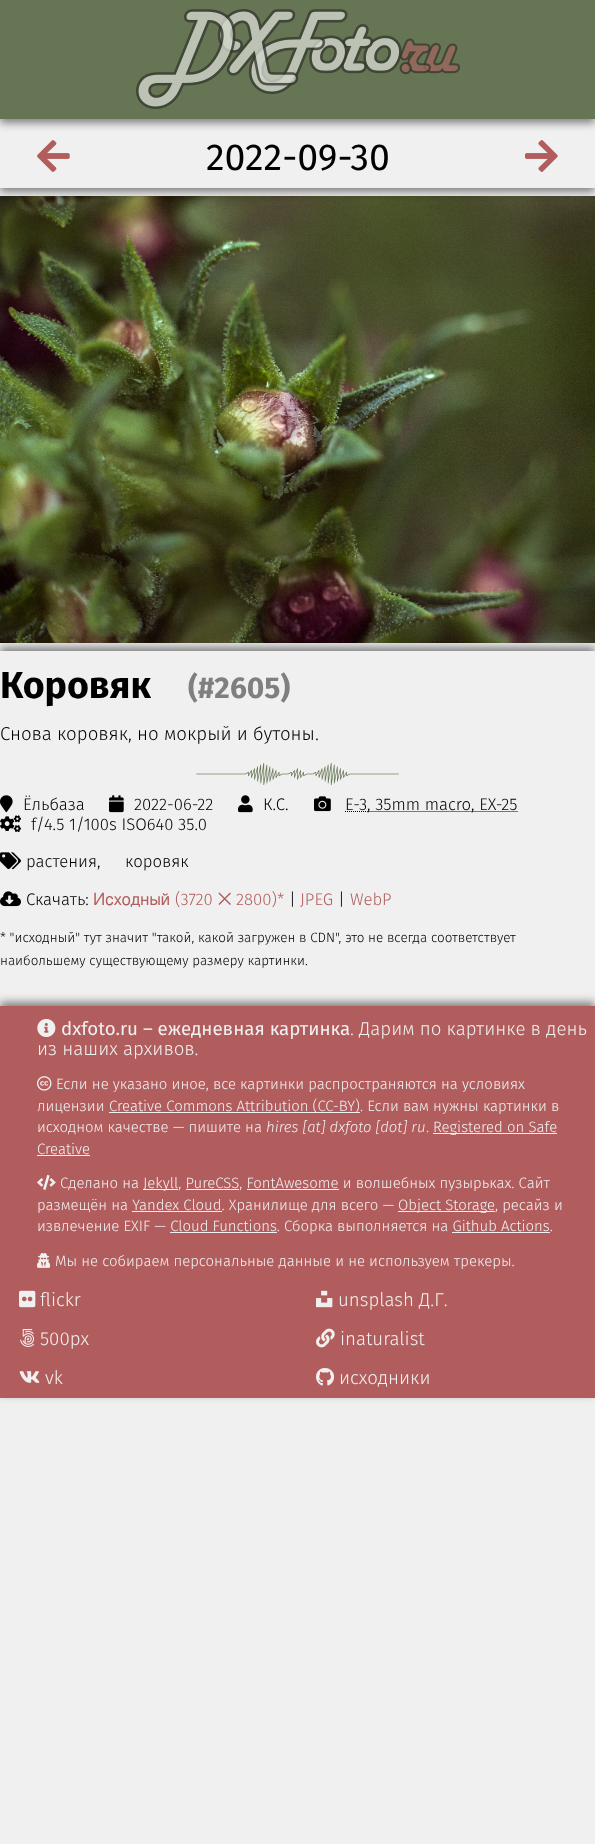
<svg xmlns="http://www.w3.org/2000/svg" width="595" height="1844">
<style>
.a{font:37.5px Fira Sans;fill:#000}
.b{font:bold 37.5px Fira Sans;fill:#000}
.c{font:bold 30px Fira Sans;fill:#7f7f7f}
.d{font:300 18.7px Fira Sans;fill:#000}
.e{font:300 16.75px Fira Sans;fill:#000}
.f{font:16.75px FreeSans;fill:#b25d5d}
.g{font:300 16.75px Fira Sans;fill:#b25d5d}
.h{font:300 13.45px Fira Sans;fill:#000}
.i{font:18.7px Fira Sans;fill:#f0f0f0}
.j{font:300 18.7px Fira Sans;fill:#f0f0f0}
.k{font:300 14.95px Fira Sans;fill:#f0f0f0}
.l{font:italic 300 14.95px Fira Sans;fill:#f0f0f0}
</style>
<defs>
<clipPath id="clip1"><path d="M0 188h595v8H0z"/></clipPath>
<clipPath id="clip2"><path d="M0 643h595v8H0z"/></clipPath>
</defs>
<rect width="100%" height="100%" fill="#f0f0f0"/>
<path fill="#7f7f7f" filter="blur(4px)" d="M0 4h595v119H0z"/>
<g clip-path="url(#clip1)">
<path fill="#7f7f7f" filter="blur(4px)" d="M0 123h595v69H0z"/>
</g>
<path fill="#667654" d="M0 0h595v119H0z"/>
<image href="1.png" x="136" y="9" width="324" height="100"/>
<image href="2.png" x="37" y="140" width="33" height="32"/>
<image href="3.png" x="525" y="140" width="33" height="32"/>
<g clip-path="url(#clip2)">
<path fill="#7f7f7f" filter="blur(4px)" d="M0 647h595v355H0z"/>
</g>
<image href="4.png" x="0" y="196" width="595" height="447"/>
<image href="5.png" x="196" y="763" width="203" height="22"/>
<image href="6.png" x="0" y="795" width="13" height="18"/>
<image href="7.png" x="109" y="795" width="15" height="18"/>
<image href="8.png" x="238" y="795" width="15" height="18"/>
<image href="9.png" x="314" y="796" width="17" height="16"/>
<path fill="none" stroke="#000" stroke-dasharray="1 1" d="M345 811.5h22.5"/>
<path fill="none" stroke="#000" stroke-dasharray="1 1" d="M367.5 811.5h8"/>
<path fill="none" stroke="#000" stroke-dasharray="1 1" d="M375.5 811.5h96"/>
<path fill="none" stroke="#000" stroke-dasharray="1 1" d="M471.5 811.5h8"/>
<path fill="none" stroke="#000" stroke-dasharray="1 1" d="M479.5 811.5h38.5"/>
<image href="10.png" x="0" y="815" width="21" height="17"/>
<image href="11.png" x="0" y="852" width="21" height="18"/>
<image href="12.png" x="0" y="891" width="21" height="16"/>
<path fill="#7f7f7f" filter="blur(4px)" d="M0 1002h595v392H0z"/>
<path fill="#b25d5d" d="M0 1006h595v392H0z"/>
<image href="13.png" x="37" y="1019" width="19" height="18"/>
<image href="14.png" x="37" y="1076" width="15" height="15"/>
<path fill="#f0f0f0" d="M109 1112h251v1H109z"/>
<path fill="#f0f0f0" d="M433 1133h124v1H433z"/>
<path fill="#f0f0f0" d="M37 1155h53v1H37z"/>
<image href="15.png" x="37" y="1174" width="19" height="16"/>
<path fill="#f0f0f0" d="M143 1189h35v1H143z"/>
<path fill="#f0f0f0" d="M186 1189h53v1H186z"/>
<path fill="#f0f0f0" d="M247 1189h92v1H247z"/>
<path fill="#f0f0f0" d="M398 1211h97v1H398z"/>
<path fill="#f0f0f0" d="M132 1211h90v1H132z"/>
<path fill="#f0f0f0" d="M170 1232h107v1H170z"/>
<path fill="#f0f0f0" d="M452 1232h98v1H452z"/>
<image href="16.png" x="37" y="1253" width="14" height="15"/>
<image href="17.png" x="19" y="1290" width="17" height="18"/>
<image href="18.png" x="20" y="1329" width="15" height="18"/>
<image href="19.png" x="19" y="1371" width="21" height="12"/>
<image href="20.png" x="316" y="1290" width="17" height="18"/>
<image href="21.png" x="316" y="1328" width="19" height="20"/>
<image href="22.png" x="316" y="1368" width="19" height="18"/>
<text class="a" x="206" y="170">2022-09-30</text>
<text class="b" x="0" y="698">Коровяк</text>
<text class="c" x="188" y="698">(#2605)</text>
<text class="d" x="0" y="740">Снова коровяк, но мокрый и бутоны.</text>
<text class="e" x="23" y="810">Ёльбаза</text>
<text class="e" x="134" y="810">2022-06-22</text>
<text class="e" x="263" y="810">К.С.</text>
<text class="e" x="345" y="810">E-3</text>
<text class="e" x="367" y="810">, 35mm macro</text>
<text class="e" x="471" y="810">, EX-25</text>
<text class="e" x="31" y="830">f/4.5 1/100s ISO640 35.0</text>
<text class="e" x="26" y="867">растения,</text>
<text class="e" x="125" y="867">коровяк</text>
<text class="e" x="26" y="905">Скачать:</text>
<text class="f" x="93" y="905">Исходный</text>
<text class="g" x="175" y="905">(3720</text>
<text class="f" x="218" y="905">⨉</text>
<text class="g" x="236" y="905">2800)*</text>
<text class="e" x="289" y="905">|</text>
<text class="g" x="300" y="905">JPEG</text>
<text class="e" x="338" y="905">|</text>
<text class="g" x="350" y="905">WebP</text>
<text class="h" x="0" y="942">* "исходный" тут значит "такой, какой загружен в CDN", это не всегда соответствует</text>
<text class="h" x="0" y="965">наибольшему существующему размеру картинки.</text>
<text class="i" x="61" y="1035">dxfoto.ru – ежедневная картинка</text>
<text class="j" x="350" y="1035">. Дарим по картинке в день</text>
<text class="j" x="37" y="1055">из наших архивов.</text>
<text class="k" x="56" y="1089">Если не указано иное, все картинки распространяются на условиях</text>
<text class="k" x="37" y="1111">лицензии</text>
<text class="k" x="109" y="1111">Creative Commons Attribution (CC-BY). Если вам нужны картинки в</text>
<text class="k" x="37" y="1132">исходном качестве — пишите на</text>
<text class="l" x="266" y="1132">hires [at] dxfoto [dot] ru</text>
<text class="k" x="426" y="1132">.</text>
<text class="k" x="433" y="1132">Registered on Safe</text>
<text class="k" x="37" y="1154">Creative</text>
<text class="k" x="60" y="1188">Сделано на</text>
<text class="k" x="143" y="1188">Jekyll, PureCSS, FontAwesome и волшебных пузырьках. Сайт</text>
<text class="k" x="37" y="1210">размещён на Yandex Cloud. Хранилище для всего —</text>
<text class="k" x="398" y="1210">Object Storage, ресайз и</text>
<text class="k" x="37" y="1231">извлечение EXIF — Cloud Functions. Сборка выполняется на Github Actions.</text>
<text class="k" x="55" y="1266">Мы не собираем персональные данные и не используем трекеры.</text>
<text class="j" x="40" y="1306">flickr</text>
<text class="j" x="40" y="1345">500px</text>
<text class="j" x="45" y="1384">vk</text>
<text class="j" x="338" y="1306">unsplash Д.Г.</text>
<text class="j" x="340" y="1345">inaturalist</text>
<text class="j" x="339" y="1384">исходники</text>
</svg>
